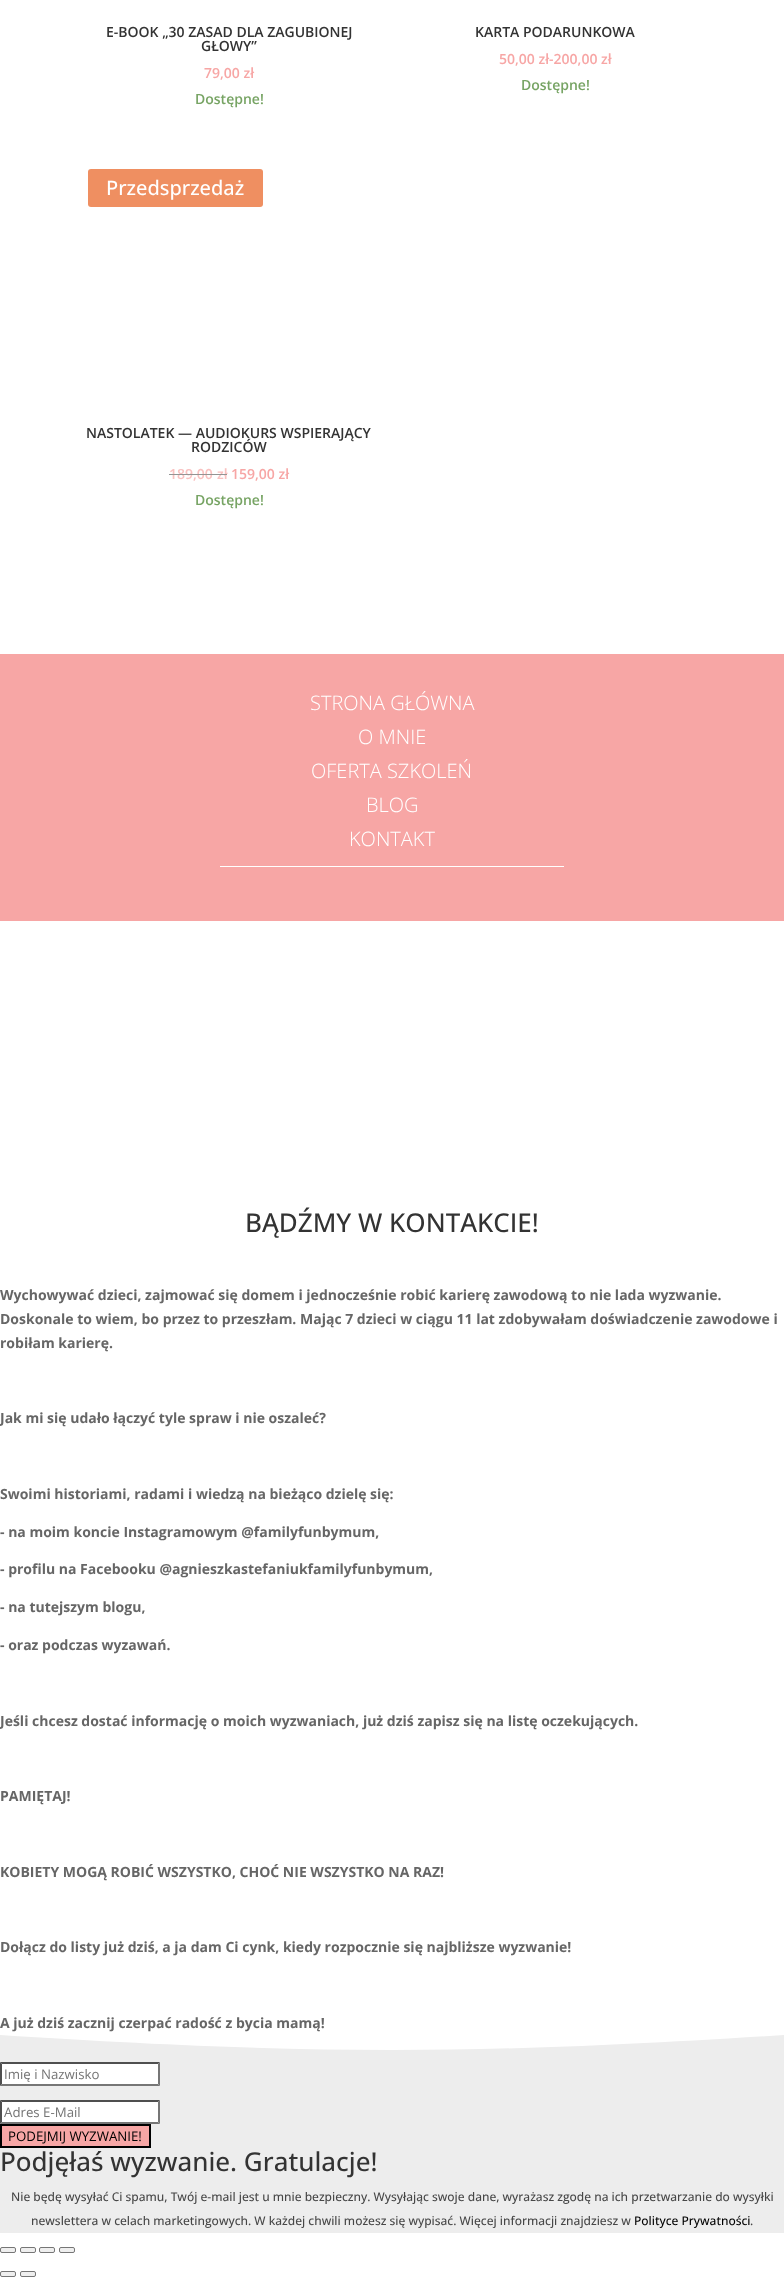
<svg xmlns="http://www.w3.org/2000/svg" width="784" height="2281">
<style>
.a{font:600 14px Open Sans;fill:#333}
.b{font:600 14px Open Sans;fill:#f7a6a5}
.c{font:600 14px Open Sans;fill:#77a464}
.d{font:500 20px Open Sans;fill:#fff}
.e{font:600 14px Open Sans;fill:#f9c1c0}
.f{font:300 20px Open Sans;fill:#fff}
.g{font:500 26px Open Sans;fill:#333}
.h{font:bold 14px Open Sans;fill:#666}
.i{font:13.25px Open Sans;fill:#757575}
.j{font:13.25px Open Sans;fill:#000}
.k{font:500 12px Open Sans;fill:#474747}
.l{font:500 12px Open Sans;fill:#000}
</style>
<rect width="100%" height="100%" fill="#fff"/>
<rect fill="#ef8f61" x="88" y="169" width="175" height="38" rx="3"/>
<path fill="#f7a6a5" d="M0 654h784v267H0z"/>
<path fill="#fff" d="M220 866h344v1H220z"/>
<path fill="#ededed" d="M0 2035h784v198H0z"/>
<path fill="#fff" d="M0 2035c314 20 470 20 784 0z"/>
<path fill="#fff" d="M0 2062h160v24H0z"/>
<path fill="#4f4f4f" d="M0 2062h160l-2 2h-156z"/>
<path fill="#767676" d="M160 2062v24l-2-2v-20z"/>
<path fill="#767676" d="M160 2086h-160l2-2h156z"/>
<path fill="#4f4f4f" d="M0 2086v-24l2 2v20z"/>
<path fill="#fff" d="M0 2100h160v24H0z"/>
<path fill="#4f4f4f" d="M0 2100h160l-2 2h-156z"/>
<path fill="#767676" d="M160 2100v24l-2-2v-20z"/>
<path fill="#767676" d="M160 2124h-160l2-2h156z"/>
<path fill="#4f4f4f" d="M0 2124v-24l2 2v20z"/>
<path fill="#f7a6a5" stroke="#000" stroke-width="2" d="M1 2125h149v22H1z"/>
<rect fill="#efefef" stroke="#767676" x="0.5" y="2247.5" width="15" height="5" rx="1.5"/>
<rect fill="#efefef" stroke="#767676" x="20.5" y="2247.5" width="15" height="5" rx="1.5"/>
<rect fill="#efefef" stroke="#767676" x="39.5" y="2247.5" width="15" height="5" rx="1.5"/>
<rect fill="#efefef" stroke="#767676" x="59.5" y="2247.5" width="15" height="5" rx="1.5"/>
<rect fill="#efefef" stroke="#767676" x="0.5" y="2271.5" width="15" height="5" rx="1.5"/>
<rect fill="#efefef" stroke="#767676" x="20.5" y="2271.5" width="15" height="5" rx="1.5"/>
<text class="a" x="106" y="37">E-BOOK „30 ZASAD DLA ZAGUBIONEJ</text>
<text class="a" x="201" y="51">GŁOWY”</text>
<text class="b" x="204" y="78">79,00 zł</text>
<text class="c" x="195" y="104">Dostępne!</text>
<text class="a" x="475" y="37">KARTA PODARUNKOWA</text>
<text class="b" x="499" y="64">50,00 zł-200,00 zł</text>
<text class="c" x="521" y="90">Dostępne!</text>
<text class="d" x="106" y="195">Przedsprzedaż</text>
<text class="a" x="86" y="438">NASTOLATEK — AUDIOKURS WSPIERAJĄCY</text>
<text class="a" x="191" y="452">RODZICÓW</text>
<text class="e" x="169" y="479">189,00</text>
<path fill="#949494" d="M169 474h48v1H169z"/>
<text class="e" x="217" y="479">zł</text>
<path fill="#949494" d="M217 474h10v1H217z"/>
<text class="b" x="231" y="479">159,00 zł</text>
<text class="c" x="195" y="505">Dostępne!</text>
<text class="f" x="310" y="710">STRONA GŁÓWNA</text>
<text class="f" x="358" y="744">O MNIE</text>
<text class="f" x="311" y="778">OFERTA SZKOLEŃ</text>
<text class="f" x="366" y="812">BLOG</text>
<text class="f" x="349" y="846">KONTAKT</text>
<text class="g" x="245" y="1232">BĄDŹMY W KONTAKCIE!</text>
<text class="h" x="0" y="1300">Wychowywać dzieci, zajmować się domem i jednocześnie robić karierę zawodową to nie lada wyzwanie.</text>
<text class="h" x="0" y="1324">Doskonale to wiem, bo przez to przeszłam. Mając 7 dzieci w ciągu 11 lat zdobywałam doświadczenie zawodowe i</text>
<text class="h" x="0" y="1348">robiłam karierę.</text>
<text class="h" x="0" y="1423">Jak mi się udało łączyć tyle spraw i nie oszaleć?</text>
<text class="h" x="0" y="1499">Swoimi historiami, radami i wiedzą na bieżąco dzielę się:</text>
<text class="h" x="0" y="1537">- na moim koncie Instagramowym @familyfunbymum,</text>
<text class="h" x="0" y="1574">- profilu na Facebooku @agnieszkastefaniukfamilyfunbymum,</text>
<text class="h" x="0" y="1612">- na tutejszym blogu,</text>
<text class="h" x="0" y="1650">- oraz podczas wyzawań.</text>
<text class="h" x="0" y="1726">Jeśli chcesz dostać informację o moich wyzwaniach, już dziś zapisz się na listę oczekujących.</text>
<text class="h" x="0" y="1801">PAMIĘTAJ!</text>
<text class="h" x="0" y="1877">KOBIETY MOGĄ ROBIĆ WSZYSTKO, CHOĆ NIE WSZYSTKO NA RAZ!</text>
<text class="h" x="0" y="1952">Dołącz do listy już dziś, a ja dam Ci cynk, kiedy rozpocznie się najbliższe wyzwanie!</text>
<text class="h" x="0" y="2028">A już dziś zacznij czerpać radość z bycia mamą!</text>
<text class="i" x="4" y="2079">Imię i Nazwisko</text>
<text class="i" x="4" y="2117">Adres E-Mail</text>
<text class="j" x="8" y="2141">PODEJMIJ WYZWANIE!</text>
<text class="g" x="0" y="2171">Podjęłaś wyzwanie. Gratulacje!</text>
<text class="k" x="11" y="2201">Nie będę wysyłać Ci spamu, Twój e-mail jest u mnie bezpieczny. Wysyłając swoje dane, wyrażasz zgodę na ich przetwarzanie do wysyłki</text>
<text class="k" x="31" y="2225">newslettera w celach marketingowych. W każdej chwili możesz się wypisać. Więcej informacji znajdziesz w</text>
<text class="l" x="634" y="2225">Polityce Prywatności</text>
<text class="k" x="750" y="2225">.</text>
</svg>
